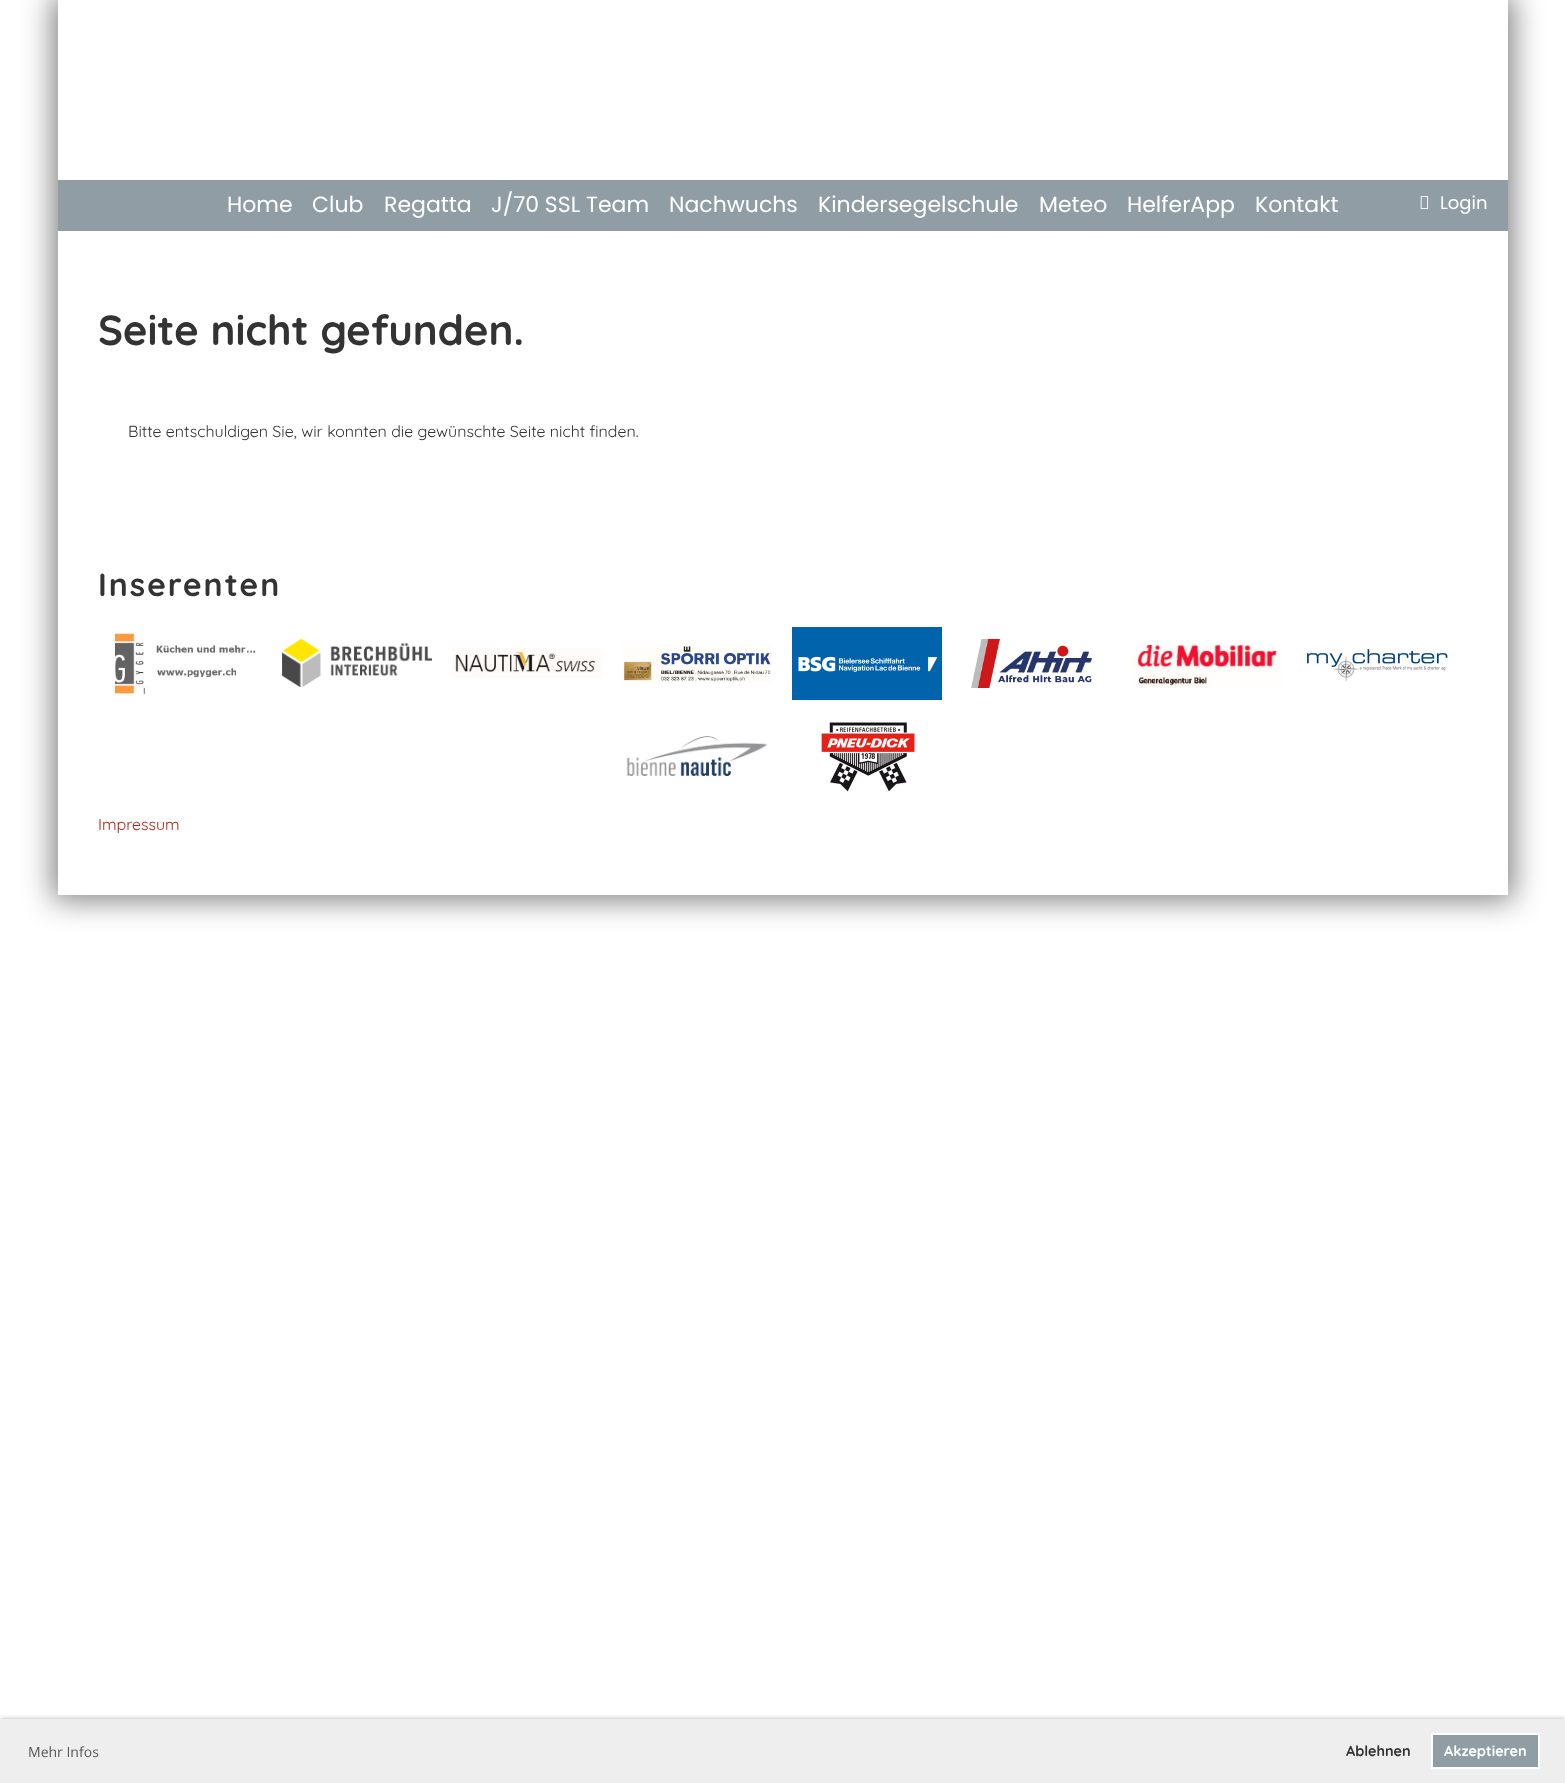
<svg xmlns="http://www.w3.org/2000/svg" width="1565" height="1783">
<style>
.a{font:22px Poppins;fill:#fff}
.b{font:18px Poppins;fill:#fff}
.c{font:300 42px Quicksand;fill:#333}
.d{font:300 16px 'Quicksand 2';fill:#333}
.e{font:300 32px Quicksand;letter-spacing:2px;fill:#333}
.f{font:300 16px 'Quicksand 2';fill:#af2315}
.g{font:14px Open Sans;fill:#585858}
.h{font:300 14.5px Quicksand;fill:#333}
.i{font:300 14.5px Quicksand;fill:#fff}
</style>
<defs>
<clipPath id="clip1"><path d="M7 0h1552v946h-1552zm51 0h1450v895h-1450z" clip-rule="evenodd"/></clipPath>
</defs>
<rect width="100%" height="100%" fill="#fff"/>
<g clip-path="url(#clip1)">
<path fill="#00000080" filter="blur(15px)" d="M53 -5h1460v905H53z"/>
</g>
<path fill="#909da5" d="M58 180h1450v51H58z"/>
<image href="1.png" x="1420" y="196" width="9" height="13"/>
<image href="2.png" x="112" y="632" width="144" height="63"/>
<image href="3.png" x="282" y="639" width="150" height="48"/>
<image href="4.png" x="452" y="648" width="150" height="30"/>
<image href="5.png" x="622" y="644" width="150" height="39"/>
<image href="6.png" x="792" y="627" width="150" height="73"/>
<image href="7.png" x="971" y="639" width="121" height="49"/>
<image href="8.png" x="1132" y="644" width="150" height="44"/>
<image href="9.png" x="1306" y="649" width="142" height="33"/>
<image href="10.png" x="626" y="736" width="142" height="41"/>
<image href="11.png" x="821" y="722" width="94" height="70"/>
<path fill="#0000004d" filter="blur(2.5px)" d="M0 1719h1565v64H0z"/>
<path fill="#eee" d="M0 1719h1565v64H0z"/>
<path fill="#909da5" stroke="#fff" stroke-width="2" d="M1432 1734h107v34H1432z"/>
<text class="a" x="227" y="212">Home</text>
<text class="a" x="312" y="212">Club</text>
<text class="a" x="384" y="212">Regatta</text>
<text class="a" x="491" y="212">J/70 SSL Team</text>
<text class="a" x="669" y="212">Nachwuchs</text>
<text class="a" x="818" y="212">Kindersegelschule</text>
<text class="a" x="1039" y="212">Meteo</text>
<text class="a" x="1127" y="212">HelferApp</text>
<text class="a" x="1255" y="212">Kontakt</text>
<text class="b" x="1440" y="209">Login</text>
<text class="c" x="98" y="345">Seite nicht gefunden.</text>
<text class="d" x="128" y="437">Bitte entschuldigen Sie, wir konnten die gewünschte Seite nicht finden.</text>
<text class="e" x="98" y="596">Inserenten</text>
<text class="f" x="98" y="830">Impressum</text>
<text class="g" x="28" y="1757">Mehr Infos</text>
<text class="h" x="1346" y="1756">Ablehnen</text>
<text class="i" x="1444" y="1756">Akzeptieren</text>
</svg>
